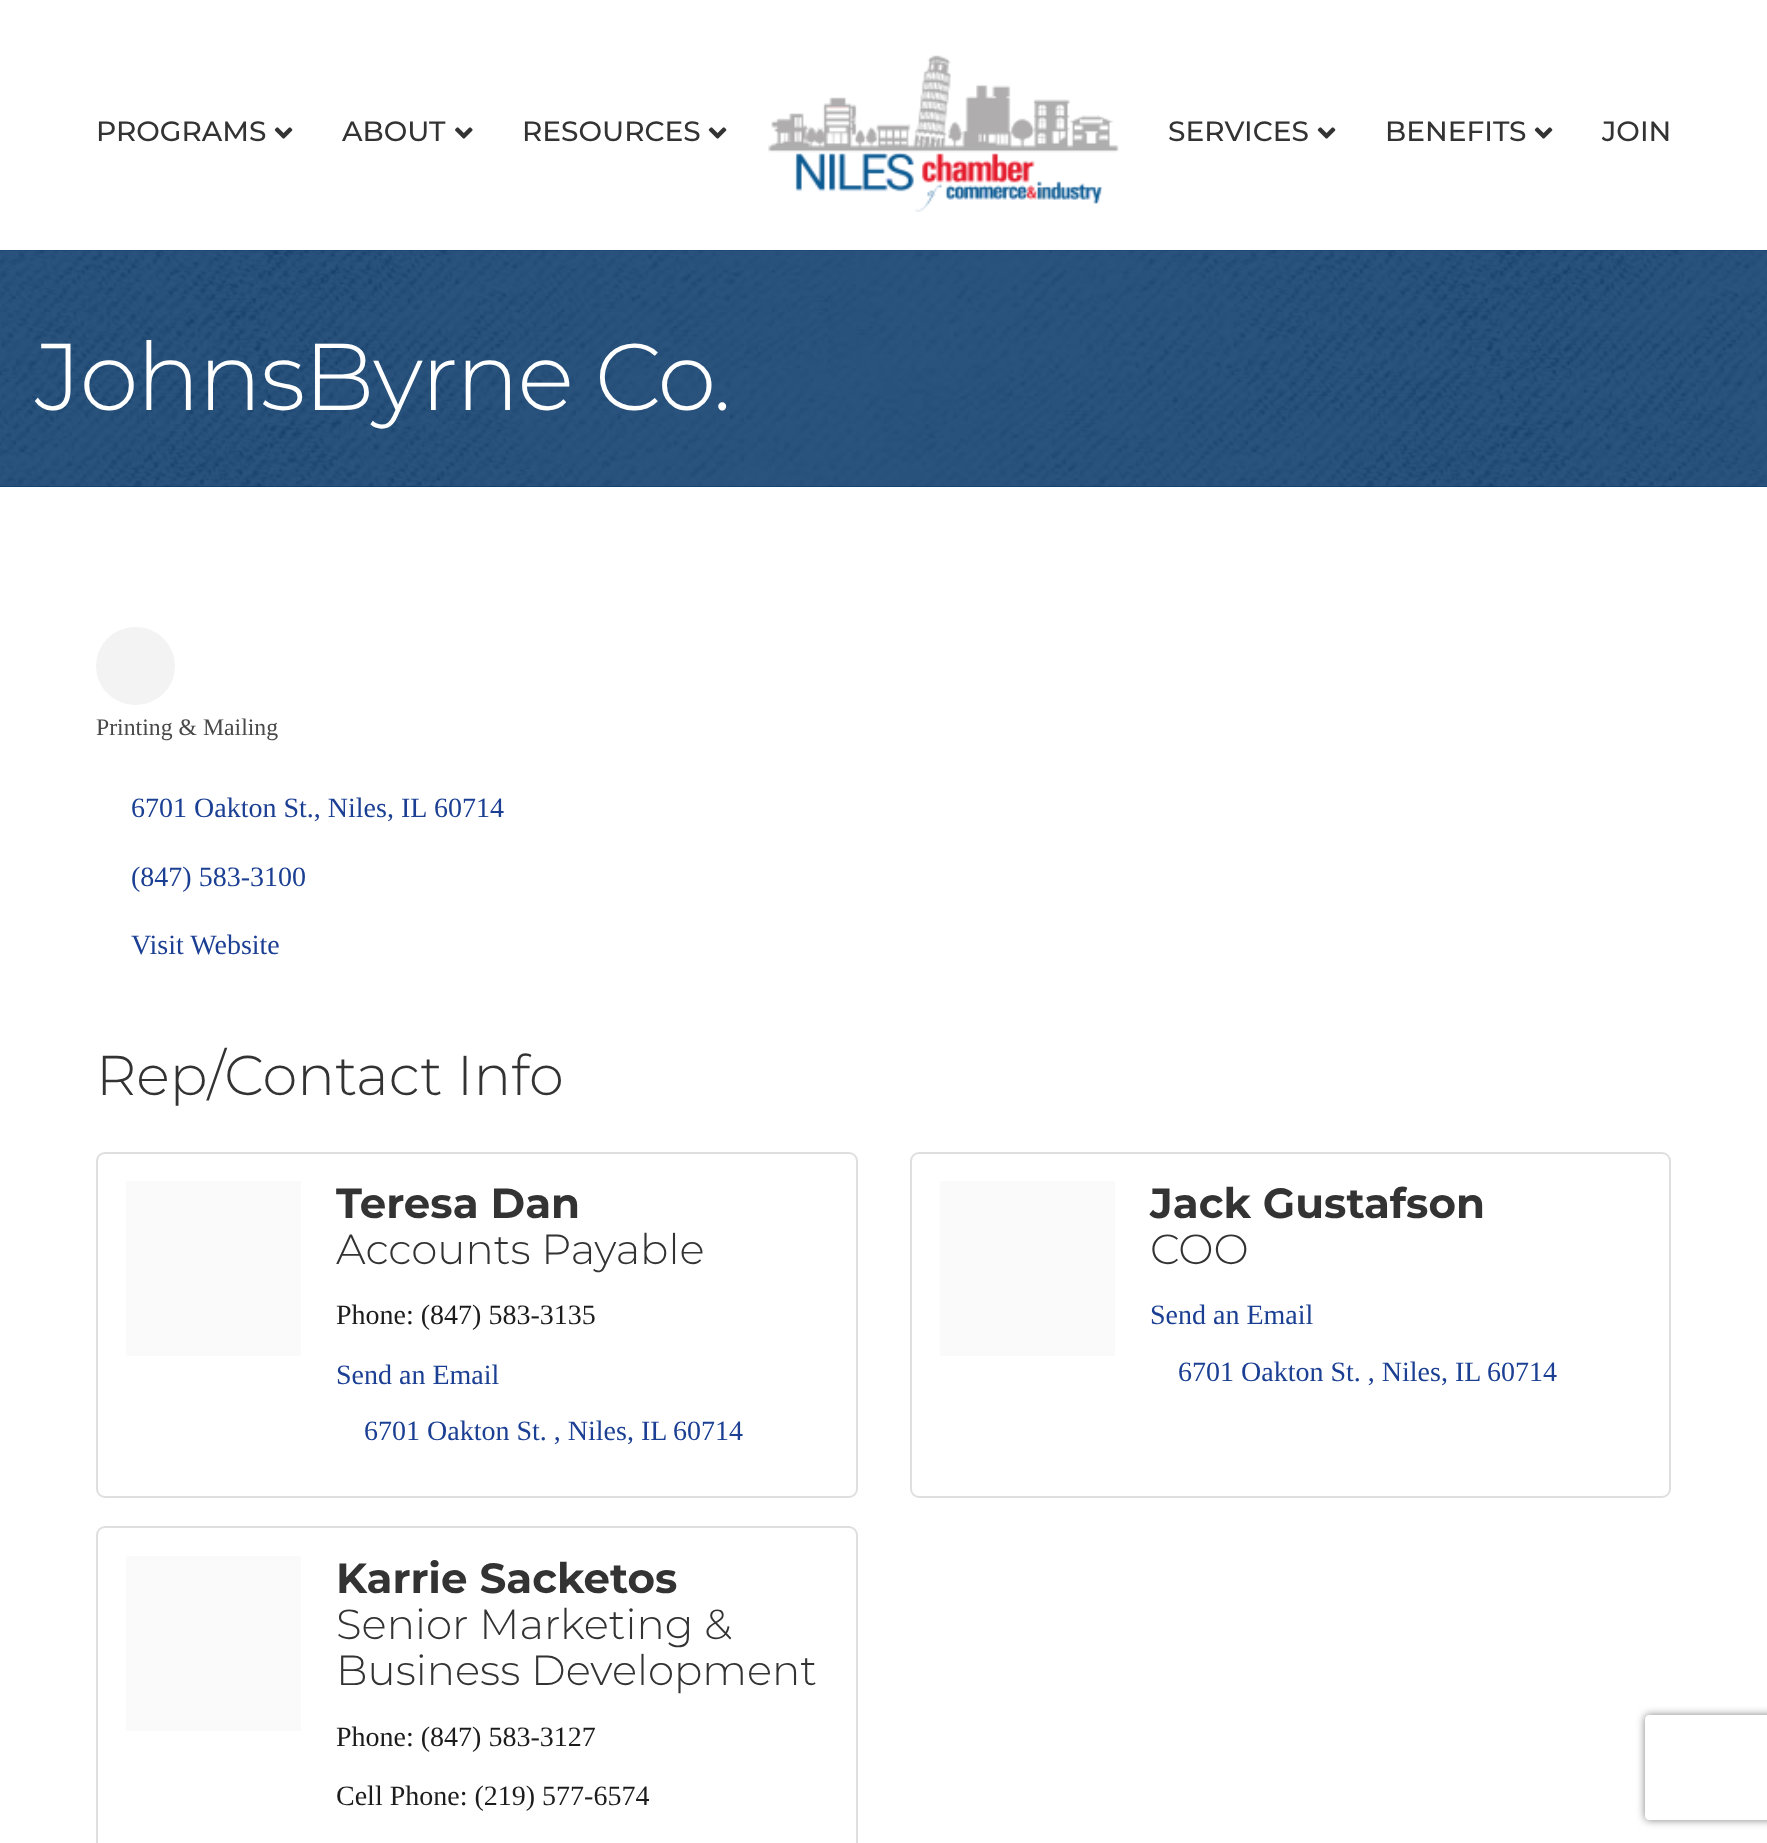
<svg xmlns="http://www.w3.org/2000/svg" width="1767" height="1843">
<style>
.a{font:500 28px Montserrat;fill:#333}
.b{font:300 94.5px Montserrat;letter-spacing:-1.75px;fill:#fff}
.c{font:23.75px Liberation Serif;fill:#494949}
.d{font:28px Liberation Serif;fill:#1b3f93}
.e{font:300 56px Montserrat;fill:#333}
.f{font:bold 42px Montserrat;fill:#333}
.g{font:300 42px Montserrat;fill:#333}
.h{font:28px Liberation Serif;fill:#1c1c1c}
</style>
<defs>
<clipPath id="clip1"><path d="M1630 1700h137v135h-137zm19 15h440c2 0 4 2 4 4v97c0 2-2 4-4 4h-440c-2 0-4-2-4-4v-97c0-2 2-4 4-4z" clip-rule="evenodd"/></clipPath>
</defs>
<rect width="100%" height="100%" fill="#fff"/>
<image href="1.png" x="274" y="127" width="19" height="12"/>
<image href="2.png" x="455" y="127" width="18" height="12"/>
<image href="1.png" x="708" y="127" width="19" height="12"/>
<image href="3.png" x="768" y="55" width="351" height="157"/>
<image href="1.png" x="1317" y="127" width="19" height="12"/>
<image href="1.png" x="1534" y="127" width="19" height="12"/>
<path fill="#043566" d="M0 250h1767v237H0z"/>
<image href="4.png" x="0" y="250" width="1767" height="237"/>
<rect fill="#f3f3f3" x="96" y="627" width="79" height="78" rx="39"/>
<rect fill="none" stroke="#dfdfdf" stroke-width="2" x="97" y="1153" width="760" height="344" rx="8"/>
<path fill="#fafafa" d="M126 1181h175v175H126z"/>
<rect fill="none" stroke="#dfdfdf" stroke-width="2" x="911" y="1153" width="759" height="344" rx="8"/>
<path fill="#fafafa" d="M940 1181h175v175H940z"/>
<rect fill="none" stroke="#dfdfdf" stroke-width="2" x="97" y="1527" width="760" height="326" rx="8"/>
<path fill="#fafafa" d="M126 1556h175v175H126z"/>
<g clip-path="url(#clip1)">
<rect fill="#808080" filter="blur(4.5px)" x="1645" y="1715" width="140" height="105" rx="4"/>
</g>
<text class="a" x="96" y="141">PROGRAMS</text>
<text class="a" x="342" y="141">ABOUT</text>
<text class="a" x="522" y="141">RESOURCES</text>
<text class="a" x="1168" y="141">SERVICES</text>
<text class="a" x="1385" y="141">BENEFITS</text>
<text class="a" x="1602" y="141">JOIN</text>
<text class="b" x="35" y="410">JohnsByrne Co.</text>
<text class="c" x="96" y="735">Printing &amp; Mailing</text>
<text class="d" x="131" y="817">6701 Oakton St., Niles, IL</text>
<text class="d" x="434" y="817">60714</text>
<text class="d" x="131" y="886">(847) 583-3100</text>
<text class="d" x="131" y="954">Visit Website</text>
<text class="e" x="96" y="1095">Rep/Contact Info</text>
<text class="f" x="336" y="1218">Teresa Dan</text>
<text class="g" x="336" y="1264">Accounts Payable</text>
<text class="h" x="336" y="1324">Phone: (847) 583-3135</text>
<text class="d" x="336" y="1384">Send an Email</text>
<text class="d" x="364" y="1440">6701 Oakton St. , Niles, IL</text>
<text class="d" x="673" y="1440">60714</text>
<text class="f" x="1150" y="1218">Jack Gustafson</text>
<text class="g" x="1150" y="1264">COO</text>
<text class="d" x="1150" y="1324">Send an Email</text>
<text class="d" x="1178" y="1381">6701 Oakton St. , Niles, IL</text>
<text class="d" x="1487" y="1381">60714</text>
<text class="f" x="336" y="1593">Karrie Sacketos</text>
<text class="g" x="336" y="1639">Senior Marketing &amp;</text>
<text class="g" x="336" y="1685">Business Development</text>
<text class="h" x="336" y="1746">Phone: (847) 583-3127</text>
<text class="h" x="336" y="1805">Cell Phone: (219) 577-6574</text>
</svg>
